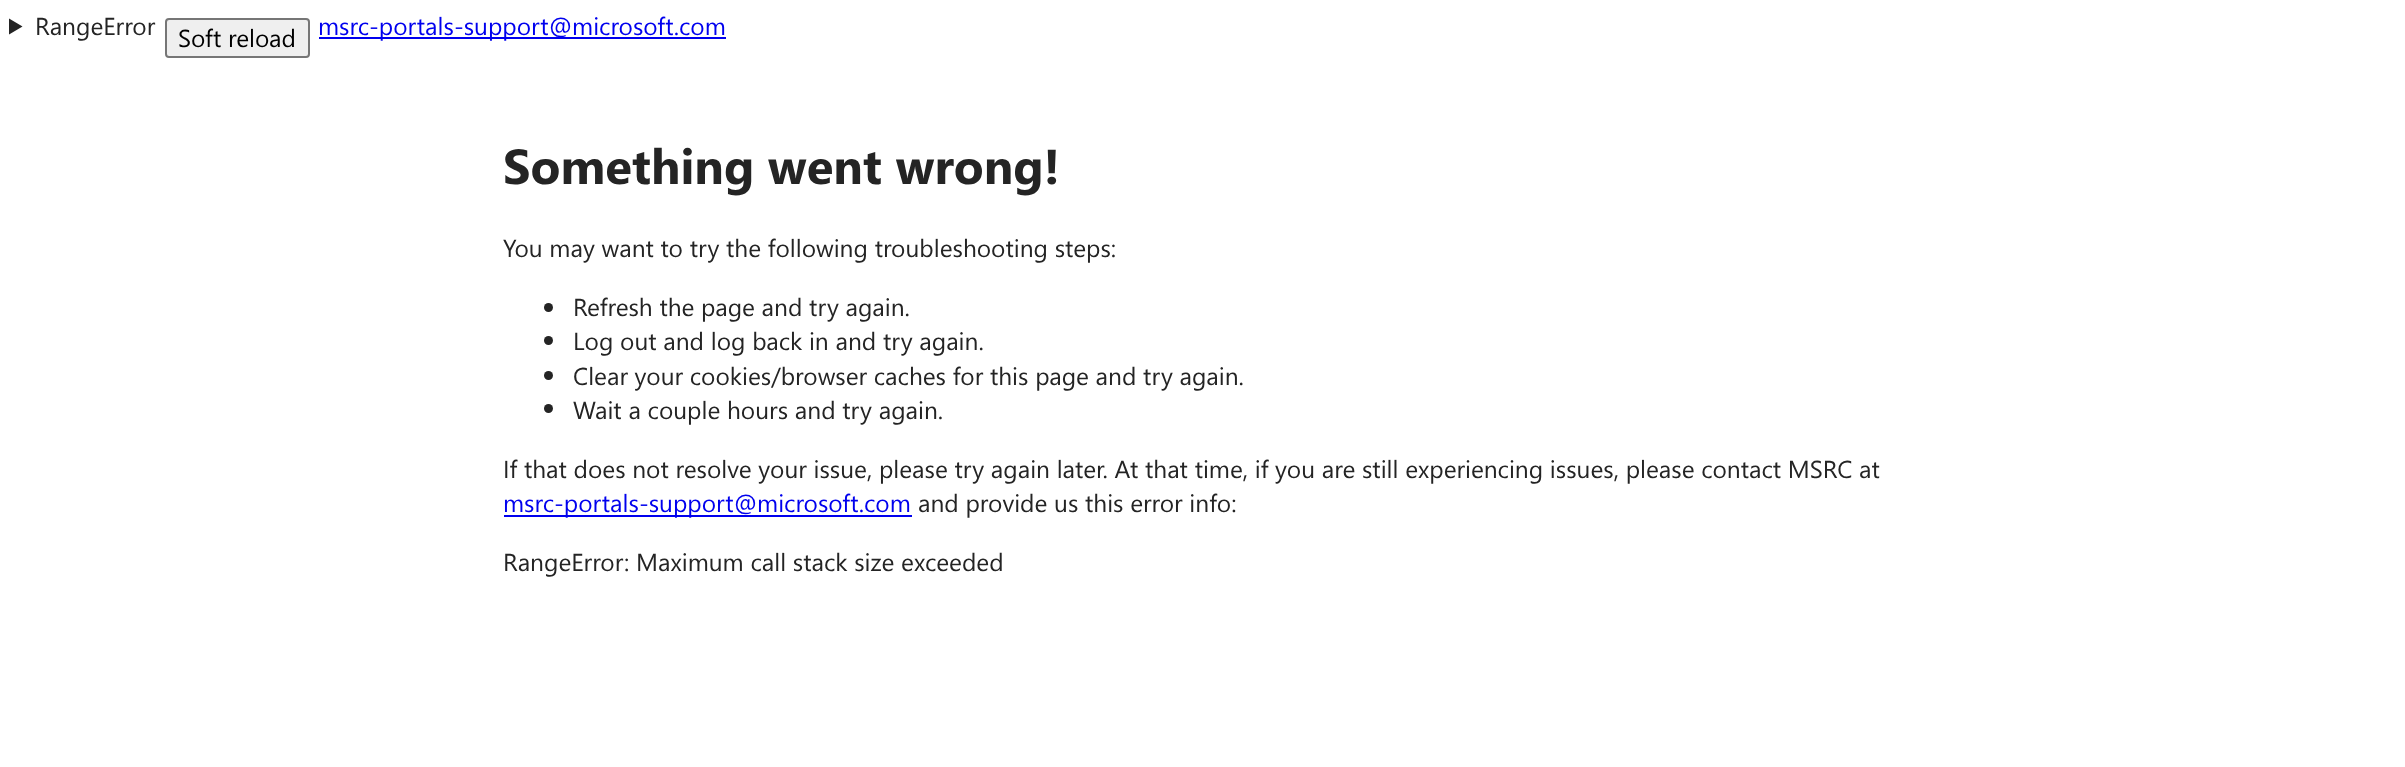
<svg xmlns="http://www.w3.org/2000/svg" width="2405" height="767">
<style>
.a{font:24.5px Segoe UI;fill:#242424}
.b{font:24.5px Segoe UI;fill:#000}
.c{font:24.5px Segoe UI;fill:#00e}
.d{font:bold 49px Segoe UI;fill:#242424}
</style>
<rect width="100%" height="100%" fill="#fff"/>
<path fill="#242424" d="M9 18.5l13.5 8l-13.5 8z"/>
<rect fill="#efefef" stroke="#767676" stroke-width="2" x="166" y="19" width="143" height="38" rx="3"/>
<path fill="#00e" d="M319 37h407v2H319z"/>
<circle fill="#242424" cx="548.5" cy="307.5" r="4.5"/>
<circle fill="#242424" cx="548.5" cy="340.5" r="4.5"/>
<circle fill="#242424" cx="548.5" cy="375.5" r="4.5"/>
<circle fill="#242424" cx="548.5" cy="408.5" r="4.5"/>
<path fill="#00e" d="M504 515h408v2H504z"/>
<text class="a" x="35" y="35">RangeError</text>
<text class="b" x="178" y="47">Soft reload</text>
<text class="c" x="318" y="35">msrc-portals-support@microsoft.com</text>
<text class="d" x="503" y="184">Something went wrong!</text>
<text class="a" x="503" y="257">You may want to try the following troubleshooting steps:</text>
<text class="a" x="573" y="316">Refresh the page and try again.</text>
<text class="a" x="573" y="350">Log out and log back in and try again.</text>
<text class="a" x="573" y="385">Clear your cookies/browser caches for this page and try again.</text>
<text class="a" x="573" y="419">Wait a couple hours and try again.</text>
<text class="a" x="503" y="478">If that does not resolve your issue, please try again later. At that time, if you are still experiencing issues, please contact MSRC at</text>
<text class="c" x="503" y="512">msrc-portals-support@microsoft.com</text>
<text class="a" x="918" y="512">and provide us this error info:</text>
<text class="a" x="503" y="571">RangeError</text>
<text class="a" x="624" y="571">:</text>
<text class="a" x="636" y="571">Maximum call stack size exceeded</text>
</svg>
